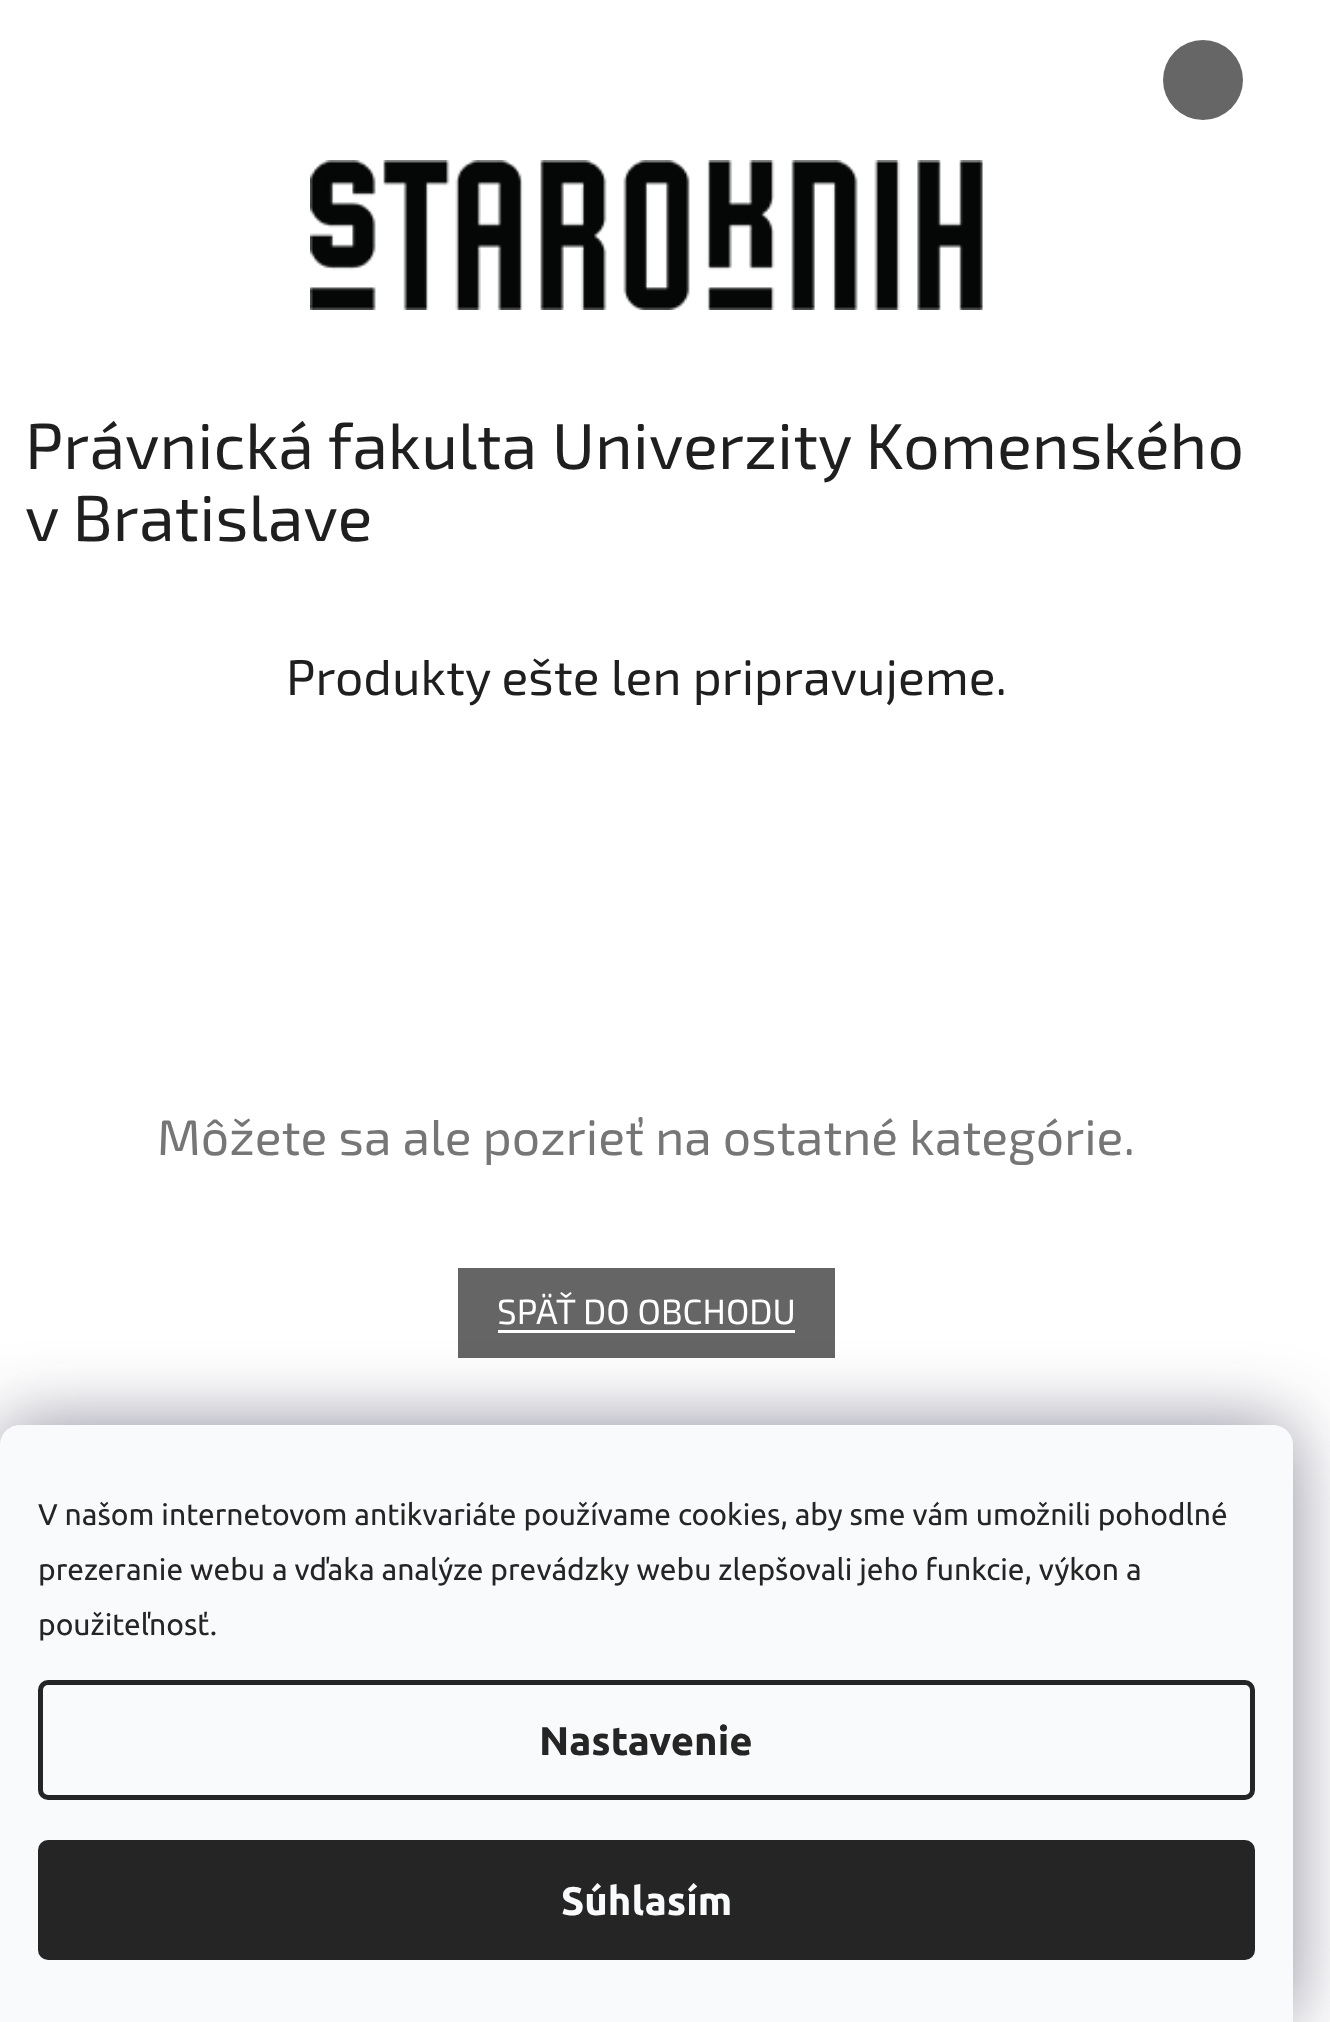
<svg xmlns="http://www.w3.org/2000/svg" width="1330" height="2022">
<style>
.a{font:65px 'Exo 2';fill:#1f1f1f}
.b{font:50px 'Exo 2';fill:#1f1f1f}
.c{font:50px 'Exo 2';fill:#767676}
.d{font:35px 'Exo 2';fill:#fff}
.e{font:30px Ubuntu;fill:#252525}
.f{font:bold 40px Ubuntu;fill:#252525}
.g{font:bold 40px Ubuntu;fill:#f8fafb}
</style>
<rect width="100%" height="100%" fill="#fff"/>
<circle fill="#666" cx="1203" cy="80" r="40"/>
<image href="1.png" x="310" y="160" width="673" height="150"/>
<path fill="#656565" d="M458 1268h377v90H458z"/>
<path fill="#fff" d="M498 1330h297v3H498z"/>
<rect fill="#1b193980" filter="blur(37.5px)" y="1425" width="1293" height="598" rx="20"/>
<path fill="#f8fafb" d="M20 1425h1253c11 0 20 9 20 20v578h-1293v-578c0-11 9-20 20-20z"/>
<rect fill="none" stroke="#252525" stroke-width="5" x="40.5" y="1682.5" width="1212" height="115" rx="7.5"/>
<rect fill="#252525" x="38" y="1840" width="1217" height="120" rx="10"/>
<text class="a" x="25" y="469">Právnická fakulta Univerzity Komenského</text>
<text class="a" x="25" y="541">v Bratislave</text>
<text class="b" x="286" y="695">Produkty ešte len pripravujeme.</text>
<text class="c" x="157" y="1155">Môžete sa ale pozrieť na ostatné kategórie.</text>
<text class="d" x="497" y="1324">SPÄŤ DO OBCHODU</text>
<text class="e" x="38" y="1525">V našom internetovom antikvariáte používame cookies, aby sme vám umožnili pohodlné</text>
<text class="e" x="38" y="1580">prezeranie webu a vďaka analýze prevádzky webu zlepšovali jeho funkcie, výkon a</text>
<text class="e" x="38" y="1635">použiteľnosť.</text>
<text class="f" x="539" y="1755">Nastavenie</text>
<text class="g" x="561" y="1915">Súhlasím</text>
</svg>
